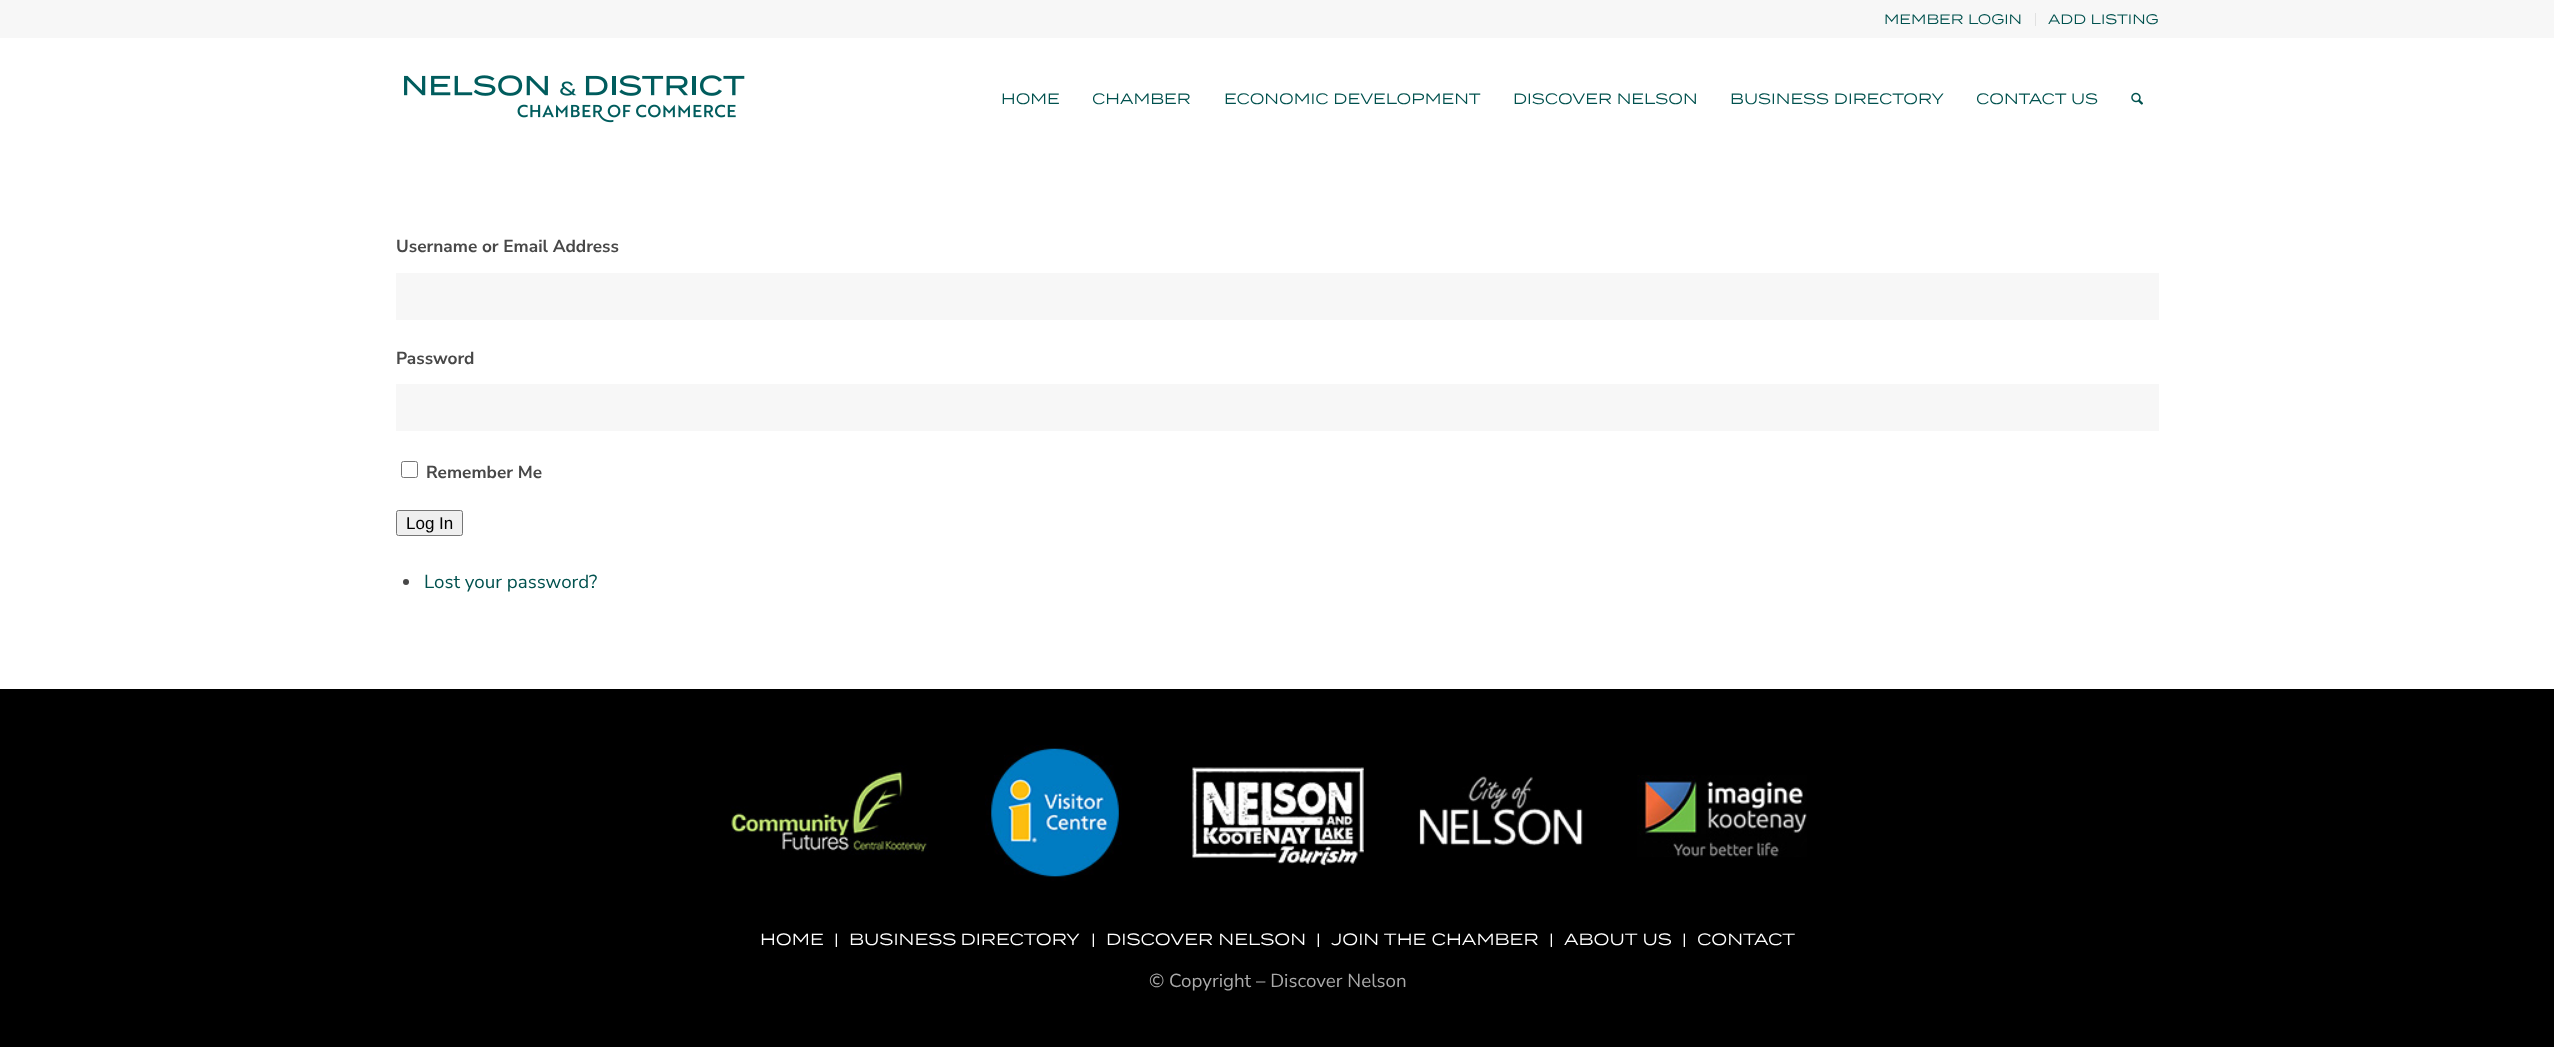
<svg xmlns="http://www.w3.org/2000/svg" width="2554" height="1047">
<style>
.a{font:13.75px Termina;fill:#00514e}
.b{font:15px Termina;fill:#00514e}
.c{font:bold 17.25px Nunito Sans;fill:#484848}
.d{font:17px Liberation Sans;fill:#000}
.e{font:18.75px Nunito Sans;fill:#00514e}
.f{font:16.25px Termina;fill:#fff}
.g{font:18.75px Nunito Sans;fill:#aaa}
</style>
<rect width="100%" height="100%" fill="#fff"/>
<path fill="#f7f7f7" d="M0 0h2554v38H0z"/>
<path fill="#e1e1e1" d="M2035 13h1v13H2035z"/>
<image href="1.png" x="404" y="75" width="341" height="48"/>
<image href="2.png" x="2131" y="92" width="12" height="13"/>
<path fill="#f7f7f7" d="M396 273h1763v47H396z"/>
<path fill="#f7f7f7" d="M396 384h1763v47H396z"/>
<rect fill="none" stroke="#767676" x="401.5" y="461.5" width="16" height="16" rx="2"/>
<rect fill="#efefef" stroke="#767676" x="396.5" y="510.5" width="66" height="25" rx="2"/>
<circle fill="#484848" cx="406" cy="582" r="3"/>
<path fill="#000" d="M0 689h2554v358H0z"/>
<image href="3.png" x="730" y="765" width="199" height="90"/>
<image href="4.png" x="985" y="745" width="137" height="136"/>
<image href="5.png" x="1192" y="767" width="172" height="99"/>
<image href="6.png" x="1419" y="776" width="164" height="70"/>
<image href="7.png" x="1637" y="775" width="170" height="82"/>
<text class="a" x="1884" y="24">MEMBER LOGIN</text>
<text class="a" x="2048" y="24">ADD LISTING</text>
<text class="b" x="1001" y="104">HOME</text>
<text class="b" x="1092" y="104">CHAMBER</text>
<text class="b" x="1224" y="104">ECONOMIC DEVELOPMENT</text>
<text class="b" x="1513" y="104">DISCOVER NELSON</text>
<text class="b" x="1730" y="104">BUSINESS DIRECTORY</text>
<text class="b" x="1976" y="104">CONTACT US</text>
<text class="c" x="396" y="252">Username or Email Address</text>
<text class="c" x="396" y="364">Password</text>
<text class="c" x="426" y="478">Remember Me</text>
<text class="d" x="406" y="529">Log In</text>
<text class="e" x="424" y="588">Lost your password?</text>
<text class="f" x="760" y="945">HOME</text>
<text class="f" x="834" y="945">|</text>
<text class="f" x="849" y="945" word-spacing="-1">BUSINESS DIRECTORY</text>
<text class="f" x="1091" y="945">|</text>
<text class="f" x="1106" y="945">DISCOVER NELSON</text>
<text class="f" x="1316" y="945">|</text>
<text class="f" x="1331" y="945">JOIN THE CHAMBER</text>
<text class="f" x="1549" y="945">|</text>
<text class="f" x="1564" y="945">ABOUT US</text>
<text class="f" x="1682" y="945">|</text>
<text class="f" x="1697" y="945">CONTACT</text>
<text class="g" x="1149" y="987">© Copyright – Discover Nelson</text>
</svg>
